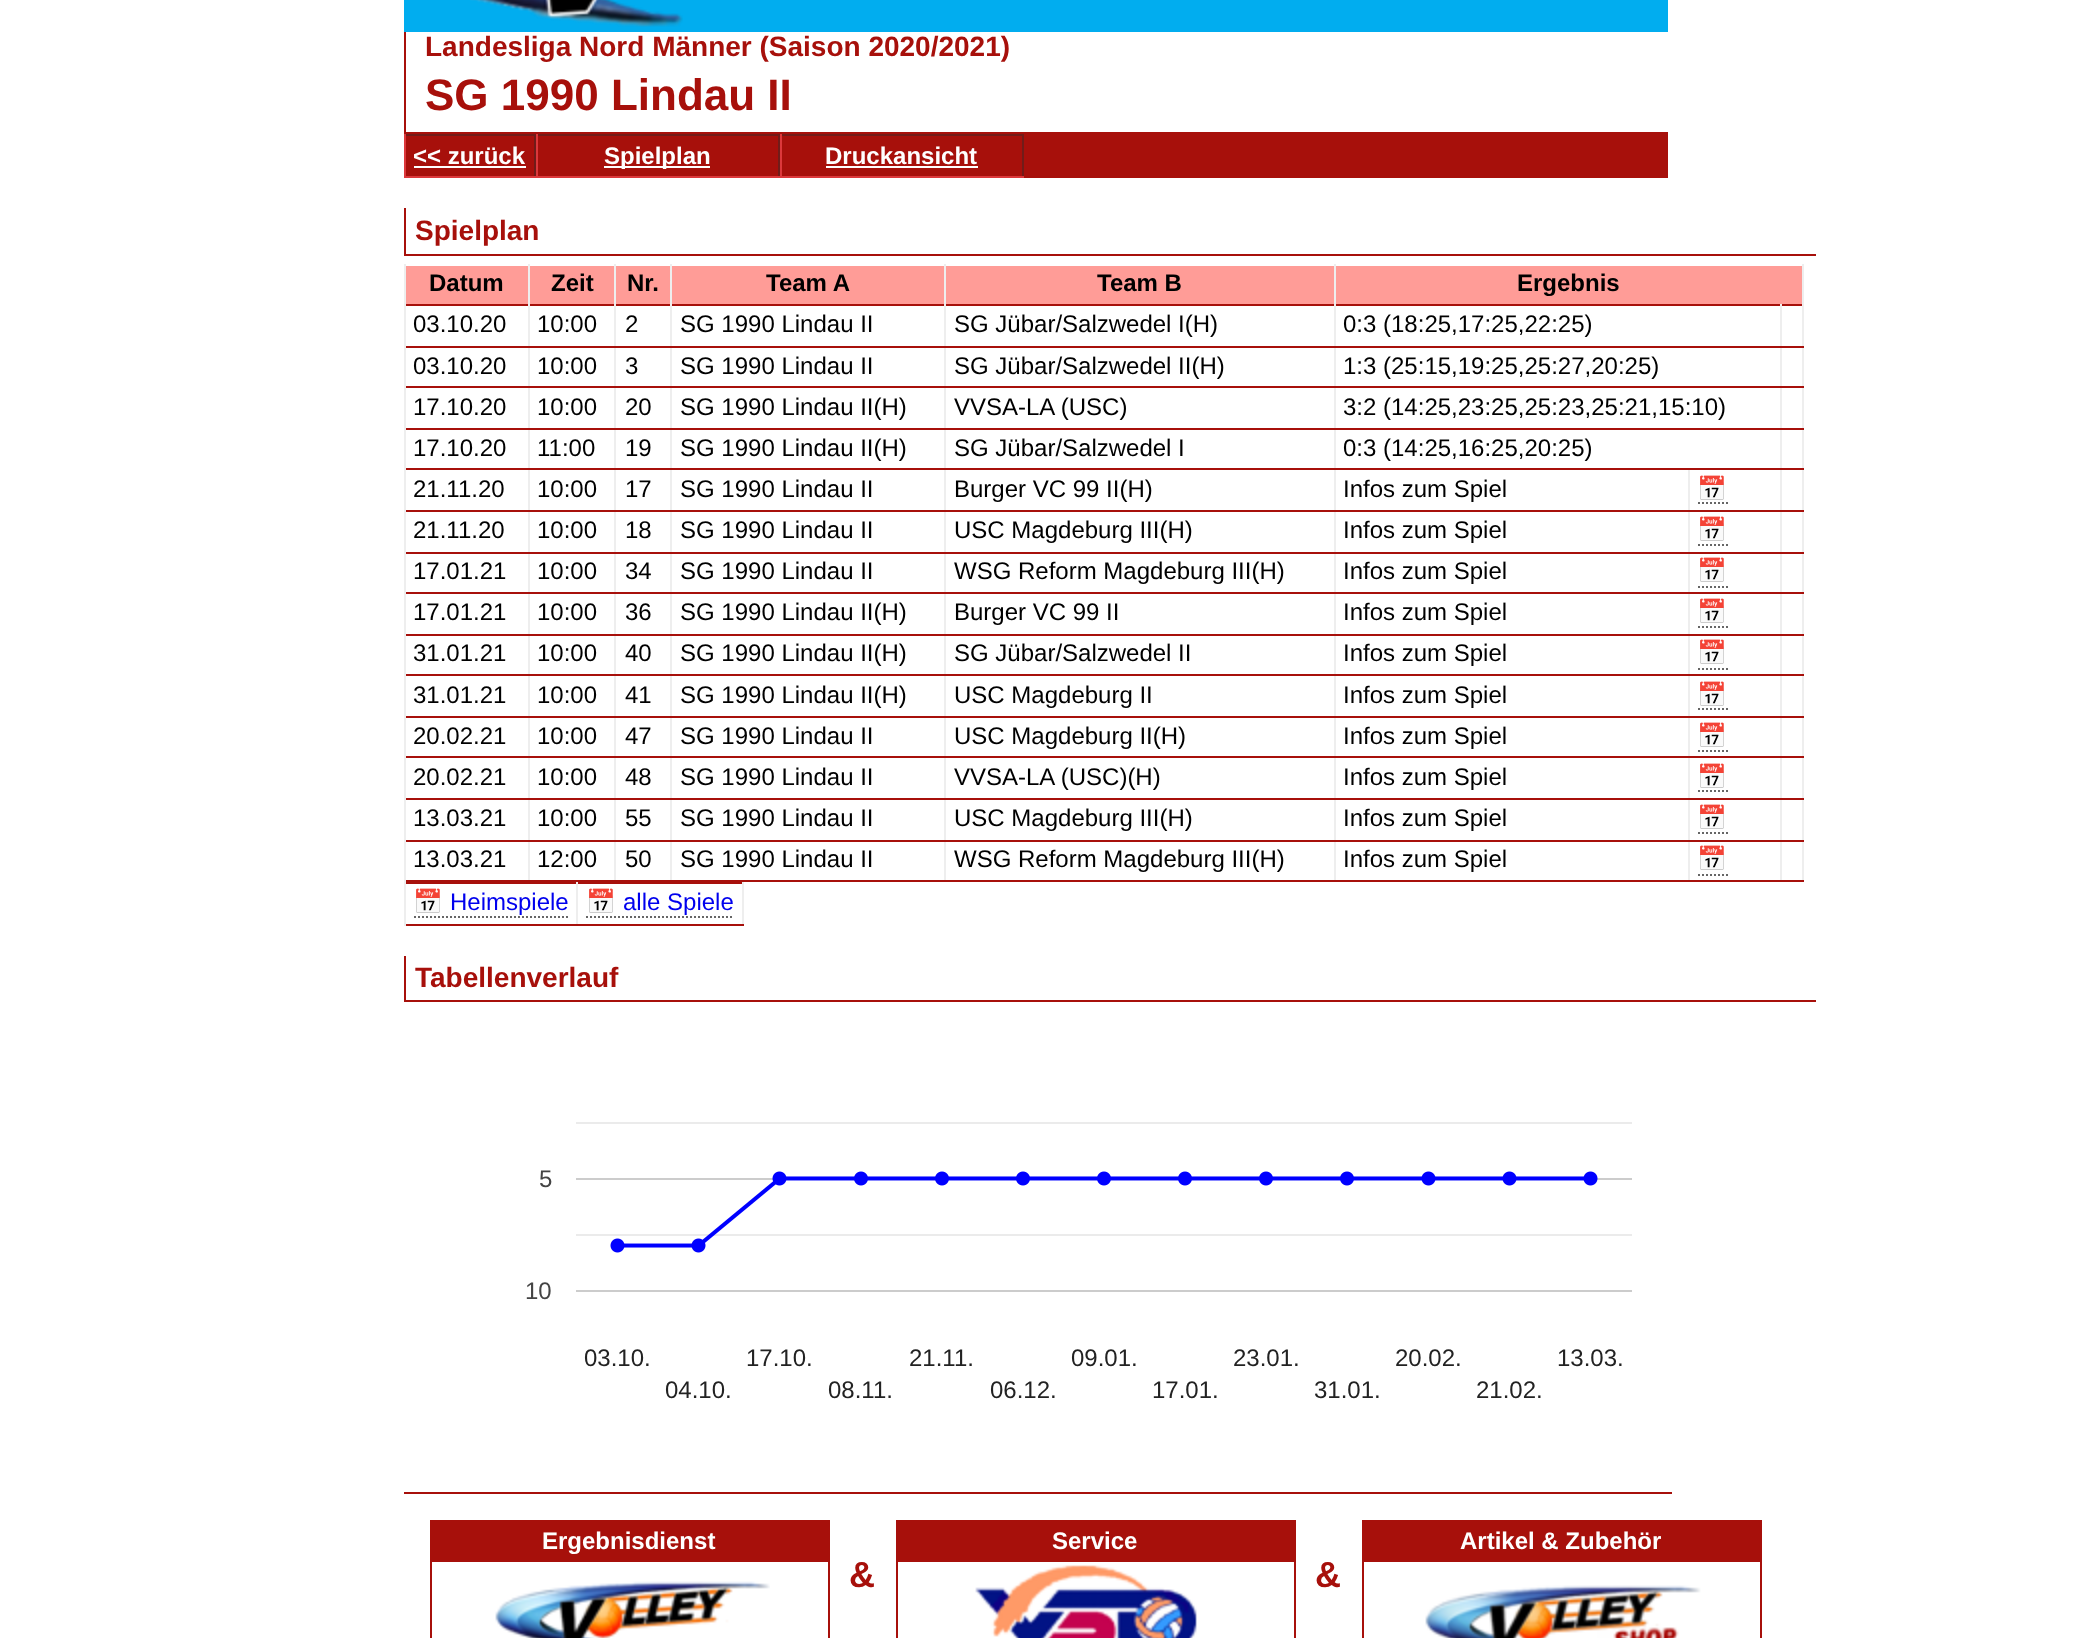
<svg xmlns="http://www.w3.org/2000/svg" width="2074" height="1638">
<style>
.a{font:bold 28px Liberation Sans;fill:#a7100b}
.b{font:bold 44px Liberation Sans;fill:#a7100b}
.c{font:bold 24px Liberation Sans;fill:#fff}
.d{font:bold 24px Liberation Sans;fill:#000}
.e{font:24px Liberation Sans;fill:#000}
.f{font:24px Noto Color Emoji;fill:#00e}
.g{font:24px Liberation Sans;fill:#00e}
.h{font:24px Liberation Sans;fill:#444}
.i{font:24px Liberation Sans;fill:#222}
.j{font:bold 36px Liberation Sans;fill:#a7100b}
</style>
<rect width="100%" height="100%" fill="#fff"/>
<path fill="#01adef" d="M404 0h1264v32H404z"/>
<image href="1.png" x="470" y="0" width="213" height="27"/>
<path fill="#a7100b" d="M404 132h1264v2H404z"/>
<path fill="#a7100b" d="M404 32h2v102H404z"/>
<path fill="#a7100b" d="M406 134h1262v44H406z"/>
<path fill="#711c19" d="M404 134h620v2H404z"/>
<path fill="#711c19" d="M534 134h2v44H534z"/>
<path fill="#dc383b" d="M404 176h132v2H404z"/>
<path fill="#dc383b" d="M404 134h2v44H404z"/>
<path fill="#fff" d="M414 166h112v2H414z"/>
<path fill="#711c19" d="M778 134h2v44H778z"/>
<path fill="#dc383b" d="M536 176h244v2H536z"/>
<path fill="#dc383b" d="M536 134h2v44H536z"/>
<path fill="#fff" d="M604 166h106v2H604z"/>
<path fill="#711c19" d="M1022 134h2v44H1022z"/>
<path fill="#dc383b" d="M780 176h244v2H780z"/>
<path fill="#dc383b" d="M780 134h2v44H780z"/>
<path fill="#fff" d="M826 166h152v2H826z"/>
<path fill="#a7100b" d="M404 254h1412v2H404z"/>
<path fill="#a7100b" d="M404 208h2v48H404z"/>
<path fill="#ff9c97" d="M406 266h122v38H406z"/>
<path fill="#ff9c97" d="M530 266h84v38H530z"/>
<path fill="#ff9c97" d="M616 266h54v38H616z"/>
<path fill="#ff9c97" d="M672 266h272v38H672z"/>
<path fill="#ff9c97" d="M946 266h388v38H946z"/>
<path fill="#ff9c97" d="M1336 266h466v38H1336z"/>
<path fill="#a7100b" d="M404 304h1400v2H404z"/>
<path fill="#eee" d="M1802 346h2v536H1802z"/>
<path fill="#eee" d="M1802 264h2v84H1802z"/>
<path fill="#a7100b" d="M1780 880h24v2H1780z"/>
<path fill="#eee" d="M1780 840h2v42H1780z"/>
<path fill="#a7100b" d="M1780 840h24v2H1780z"/>
<path fill="#eee" d="M1780 798h2v44H1780z"/>
<path fill="#a7100b" d="M1780 798h24v2H1780z"/>
<path fill="#eee" d="M1780 756h2v44H1780z"/>
<path fill="#a7100b" d="M1780 756h24v2H1780z"/>
<path fill="#eee" d="M1780 716h2v42H1780z"/>
<path fill="#a7100b" d="M1780 716h24v2H1780z"/>
<path fill="#eee" d="M1780 674h2v44H1780z"/>
<path fill="#a7100b" d="M1780 674h24v2H1780z"/>
<path fill="#eee" d="M1780 634h2v42H1780z"/>
<path fill="#a7100b" d="M1780 634h24v2H1780z"/>
<path fill="#eee" d="M1780 592h2v44H1780z"/>
<path fill="#a7100b" d="M1780 592h24v2H1780z"/>
<path fill="#eee" d="M1780 552h2v42H1780z"/>
<path fill="#a7100b" d="M1780 552h24v2H1780z"/>
<path fill="#eee" d="M1780 510h2v44H1780z"/>
<path fill="#a7100b" d="M1780 510h24v2H1780z"/>
<path fill="#eee" d="M1780 468h2v44H1780z"/>
<path fill="#a7100b" d="M1780 468h24v2H1780z"/>
<path fill="#eee" d="M1780 428h2v42H1780z"/>
<path fill="#a7100b" d="M1780 428h24v2H1780z"/>
<path fill="#eee" d="M1780 386h2v44H1780z"/>
<path fill="#a7100b" d="M1780 386h24v2H1780z"/>
<path fill="#eee" d="M1780 346h2v42H1780z"/>
<path fill="#a7100b" d="M1780 346h24v2H1780z"/>
<path fill="#eee" d="M1780 304h2v44H1780z"/>
<path fill="#a7100b" d="M1688 880h94v2H1688z"/>
<path fill="#eee" d="M1688 840h2v42H1688z"/>
<path fill="#a7100b" d="M1688 840h94v2H1688z"/>
<path fill="#eee" d="M1688 798h2v44H1688z"/>
<path fill="#a7100b" d="M1688 798h94v2H1688z"/>
<path fill="#eee" d="M1688 756h2v44H1688z"/>
<path fill="#a7100b" d="M1688 756h94v2H1688z"/>
<path fill="#eee" d="M1688 716h2v42H1688z"/>
<path fill="#a7100b" d="M1688 716h94v2H1688z"/>
<path fill="#eee" d="M1688 674h2v44H1688z"/>
<path fill="#a7100b" d="M1688 674h94v2H1688z"/>
<path fill="#eee" d="M1688 634h2v42H1688z"/>
<path fill="#a7100b" d="M1688 634h94v2H1688z"/>
<path fill="#eee" d="M1688 592h2v44H1688z"/>
<path fill="#a7100b" d="M1688 592h94v2H1688z"/>
<path fill="#eee" d="M1688 552h2v42H1688z"/>
<path fill="#a7100b" d="M1688 552h94v2H1688z"/>
<path fill="#eee" d="M1688 510h2v44H1688z"/>
<path fill="#a7100b" d="M1688 510h94v2H1688z"/>
<path fill="#eee" d="M1688 468h2v44H1688z"/>
<path fill="#a7100b" d="M1334 880h356v2H1334z"/>
<path fill="#eee" d="M1334 840h2v42H1334z"/>
<path fill="#a7100b" d="M1334 840h356v2H1334z"/>
<path fill="#eee" d="M1334 798h2v44H1334z"/>
<path fill="#a7100b" d="M1334 798h356v2H1334z"/>
<path fill="#eee" d="M1334 756h2v44H1334z"/>
<path fill="#a7100b" d="M1334 756h356v2H1334z"/>
<path fill="#eee" d="M1334 716h2v42H1334z"/>
<path fill="#a7100b" d="M1334 716h356v2H1334z"/>
<path fill="#eee" d="M1334 674h2v44H1334z"/>
<path fill="#a7100b" d="M1334 674h356v2H1334z"/>
<path fill="#eee" d="M1334 634h2v42H1334z"/>
<path fill="#a7100b" d="M1334 634h356v2H1334z"/>
<path fill="#eee" d="M1334 592h2v44H1334z"/>
<path fill="#a7100b" d="M1334 592h356v2H1334z"/>
<path fill="#eee" d="M1334 552h2v42H1334z"/>
<path fill="#a7100b" d="M1334 552h356v2H1334z"/>
<path fill="#eee" d="M1334 510h2v44H1334z"/>
<path fill="#a7100b" d="M1334 510h356v2H1334z"/>
<path fill="#eee" d="M1334 468h2v44H1334z"/>
<path fill="#a7100b" d="M1334 468h448v2H1334z"/>
<path fill="#eee" d="M1334 428h2v42H1334z"/>
<path fill="#a7100b" d="M1334 428h448v2H1334z"/>
<path fill="#eee" d="M1334 386h2v44H1334z"/>
<path fill="#a7100b" d="M1334 386h448v2H1334z"/>
<path fill="#eee" d="M1334 346h2v42H1334z"/>
<path fill="#a7100b" d="M1334 346h448v2H1334z"/>
<path fill="#eee" d="M1334 264h2v84H1334z"/>
<path fill="#a7100b" d="M944 880h392v2H944z"/>
<path fill="#eee" d="M944 840h2v42H944z"/>
<path fill="#a7100b" d="M944 840h392v2H944z"/>
<path fill="#eee" d="M944 798h2v44H944z"/>
<path fill="#a7100b" d="M944 798h392v2H944z"/>
<path fill="#eee" d="M944 756h2v44H944z"/>
<path fill="#a7100b" d="M944 756h392v2H944z"/>
<path fill="#eee" d="M944 716h2v42H944z"/>
<path fill="#a7100b" d="M944 716h392v2H944z"/>
<path fill="#eee" d="M944 674h2v44H944z"/>
<path fill="#a7100b" d="M944 674h392v2H944z"/>
<path fill="#eee" d="M944 634h2v42H944z"/>
<path fill="#a7100b" d="M944 634h392v2H944z"/>
<path fill="#eee" d="M944 592h2v44H944z"/>
<path fill="#a7100b" d="M944 592h392v2H944z"/>
<path fill="#eee" d="M944 552h2v42H944z"/>
<path fill="#a7100b" d="M944 552h392v2H944z"/>
<path fill="#eee" d="M944 510h2v44H944z"/>
<path fill="#a7100b" d="M944 510h392v2H944z"/>
<path fill="#eee" d="M944 468h2v44H944z"/>
<path fill="#a7100b" d="M944 468h392v2H944z"/>
<path fill="#eee" d="M944 428h2v42H944z"/>
<path fill="#a7100b" d="M944 428h392v2H944z"/>
<path fill="#eee" d="M944 386h2v44H944z"/>
<path fill="#a7100b" d="M944 386h392v2H944z"/>
<path fill="#eee" d="M944 346h2v42H944z"/>
<path fill="#a7100b" d="M944 346h392v2H944z"/>
<path fill="#eee" d="M944 264h2v84H944z"/>
<path fill="#a7100b" d="M670 880h276v2H670z"/>
<path fill="#eee" d="M670 840h2v42H670z"/>
<path fill="#a7100b" d="M670 840h276v2H670z"/>
<path fill="#eee" d="M670 798h2v44H670z"/>
<path fill="#a7100b" d="M670 798h276v2H670z"/>
<path fill="#eee" d="M670 756h2v44H670z"/>
<path fill="#a7100b" d="M670 756h276v2H670z"/>
<path fill="#eee" d="M670 716h2v42H670z"/>
<path fill="#a7100b" d="M670 716h276v2H670z"/>
<path fill="#eee" d="M670 674h2v44H670z"/>
<path fill="#a7100b" d="M670 674h276v2H670z"/>
<path fill="#eee" d="M670 634h2v42H670z"/>
<path fill="#a7100b" d="M670 634h276v2H670z"/>
<path fill="#eee" d="M670 592h2v44H670z"/>
<path fill="#a7100b" d="M670 592h276v2H670z"/>
<path fill="#eee" d="M670 552h2v42H670z"/>
<path fill="#a7100b" d="M670 552h276v2H670z"/>
<path fill="#eee" d="M670 510h2v44H670z"/>
<path fill="#a7100b" d="M670 510h276v2H670z"/>
<path fill="#eee" d="M670 468h2v44H670z"/>
<path fill="#a7100b" d="M670 468h276v2H670z"/>
<path fill="#eee" d="M670 428h2v42H670z"/>
<path fill="#a7100b" d="M670 428h276v2H670z"/>
<path fill="#eee" d="M670 386h2v44H670z"/>
<path fill="#a7100b" d="M670 386h276v2H670z"/>
<path fill="#eee" d="M670 346h2v42H670z"/>
<path fill="#a7100b" d="M670 346h276v2H670z"/>
<path fill="#eee" d="M670 264h2v84H670z"/>
<path fill="#a7100b" d="M614 880h58v2H614z"/>
<path fill="#eee" d="M614 840h2v42H614z"/>
<path fill="#a7100b" d="M614 840h58v2H614z"/>
<path fill="#eee" d="M614 798h2v44H614z"/>
<path fill="#a7100b" d="M614 798h58v2H614z"/>
<path fill="#eee" d="M614 756h2v44H614z"/>
<path fill="#a7100b" d="M614 756h58v2H614z"/>
<path fill="#eee" d="M614 716h2v42H614z"/>
<path fill="#a7100b" d="M614 716h58v2H614z"/>
<path fill="#eee" d="M614 674h2v44H614z"/>
<path fill="#a7100b" d="M614 674h58v2H614z"/>
<path fill="#eee" d="M614 634h2v42H614z"/>
<path fill="#a7100b" d="M614 634h58v2H614z"/>
<path fill="#eee" d="M614 592h2v44H614z"/>
<path fill="#a7100b" d="M614 592h58v2H614z"/>
<path fill="#eee" d="M614 552h2v42H614z"/>
<path fill="#a7100b" d="M614 552h58v2H614z"/>
<path fill="#eee" d="M614 510h2v44H614z"/>
<path fill="#a7100b" d="M614 510h58v2H614z"/>
<path fill="#eee" d="M614 468h2v44H614z"/>
<path fill="#a7100b" d="M614 468h58v2H614z"/>
<path fill="#eee" d="M614 428h2v42H614z"/>
<path fill="#a7100b" d="M614 428h58v2H614z"/>
<path fill="#eee" d="M614 386h2v44H614z"/>
<path fill="#a7100b" d="M614 386h58v2H614z"/>
<path fill="#eee" d="M614 346h2v42H614z"/>
<path fill="#a7100b" d="M614 346h58v2H614z"/>
<path fill="#eee" d="M614 264h2v84H614z"/>
<path fill="#a7100b" d="M528 880h88v2H528z"/>
<path fill="#eee" d="M528 840h2v42H528z"/>
<path fill="#a7100b" d="M528 840h88v2H528z"/>
<path fill="#eee" d="M528 798h2v44H528z"/>
<path fill="#a7100b" d="M528 798h88v2H528z"/>
<path fill="#eee" d="M528 756h2v44H528z"/>
<path fill="#a7100b" d="M528 756h88v2H528z"/>
<path fill="#eee" d="M528 716h2v42H528z"/>
<path fill="#a7100b" d="M528 716h88v2H528z"/>
<path fill="#eee" d="M528 674h2v44H528z"/>
<path fill="#a7100b" d="M528 674h88v2H528z"/>
<path fill="#eee" d="M528 634h2v42H528z"/>
<path fill="#a7100b" d="M528 634h88v2H528z"/>
<path fill="#eee" d="M528 592h2v44H528z"/>
<path fill="#a7100b" d="M528 592h88v2H528z"/>
<path fill="#eee" d="M528 552h2v42H528z"/>
<path fill="#a7100b" d="M528 552h88v2H528z"/>
<path fill="#eee" d="M528 510h2v44H528z"/>
<path fill="#a7100b" d="M528 510h88v2H528z"/>
<path fill="#eee" d="M528 468h2v44H528z"/>
<path fill="#a7100b" d="M528 468h88v2H528z"/>
<path fill="#eee" d="M528 428h2v42H528z"/>
<path fill="#a7100b" d="M528 428h88v2H528z"/>
<path fill="#eee" d="M528 386h2v44H528z"/>
<path fill="#a7100b" d="M528 386h88v2H528z"/>
<path fill="#eee" d="M528 346h2v42H528z"/>
<path fill="#a7100b" d="M528 346h88v2H528z"/>
<path fill="#eee" d="M528 264h2v84H528z"/>
<path fill="#a7100b" d="M404 880h126v2H404z"/>
<path fill="#eee" d="M404 840h2v42H404z"/>
<path fill="#a7100b" d="M404 840h126v2H404z"/>
<path fill="#eee" d="M404 798h2v44H404z"/>
<path fill="#a7100b" d="M404 798h126v2H404z"/>
<path fill="#eee" d="M404 756h2v44H404z"/>
<path fill="#a7100b" d="M404 756h126v2H404z"/>
<path fill="#eee" d="M404 716h2v42H404z"/>
<path fill="#a7100b" d="M404 716h126v2H404z"/>
<path fill="#eee" d="M404 674h2v44H404z"/>
<path fill="#a7100b" d="M404 674h126v2H404z"/>
<path fill="#eee" d="M404 634h2v42H404z"/>
<path fill="#a7100b" d="M404 634h126v2H404z"/>
<path fill="#eee" d="M404 592h2v44H404z"/>
<path fill="#a7100b" d="M404 592h126v2H404z"/>
<path fill="#eee" d="M404 552h2v42H404z"/>
<path fill="#a7100b" d="M404 552h126v2H404z"/>
<path fill="#eee" d="M404 510h2v44H404z"/>
<path fill="#a7100b" d="M404 510h126v2H404z"/>
<path fill="#eee" d="M404 468h2v44H404z"/>
<path fill="#a7100b" d="M404 468h126v2H404z"/>
<path fill="#eee" d="M404 428h2v42H404z"/>
<path fill="#a7100b" d="M404 428h126v2H404z"/>
<path fill="#eee" d="M404 386h2v44H404z"/>
<path fill="#a7100b" d="M404 386h126v2H404z"/>
<path fill="#eee" d="M404 346h2v42H404z"/>
<path fill="#a7100b" d="M404 346h126v2H404z"/>
<path fill="#eee" d="M404 264h2v84H404z"/>
<path fill="none" stroke="#666" stroke-width="2" stroke-dasharray="2 2" d="M1698 503h30"/>
<path fill="none" stroke="#666" stroke-width="2" stroke-dasharray="2 2" d="M1698 545h30"/>
<path fill="none" stroke="#666" stroke-width="2" stroke-dasharray="2 2" d="M1698 587h30"/>
<path fill="none" stroke="#666" stroke-width="2" stroke-dasharray="2 2" d="M1698 627h30"/>
<path fill="none" stroke="#666" stroke-width="2" stroke-dasharray="2 2" d="M1698 669h30"/>
<path fill="none" stroke="#666" stroke-width="2" stroke-dasharray="2 2" d="M1698 709h30"/>
<path fill="none" stroke="#666" stroke-width="2" stroke-dasharray="2 2" d="M1698 751h30"/>
<path fill="none" stroke="#666" stroke-width="2" stroke-dasharray="2 2" d="M1698 791h30"/>
<path fill="none" stroke="#666" stroke-width="2" stroke-dasharray="2 2" d="M1698 833h30"/>
<path fill="none" stroke="#666" stroke-width="2" stroke-dasharray="2 2" d="M1698 875h30"/>
<path fill="#a7100b" d="M404 882h340v2H404z"/>
<path fill="#eee" d="M742 882h2v44H742z"/>
<path fill="#a7100b" d="M576 924h168v2H576z"/>
<path fill="#eee" d="M576 882h2v44H576z"/>
<path fill="#a7100b" d="M404 924h174v2H404z"/>
<path fill="#eee" d="M404 882h2v44H404z"/>
<path fill="none" stroke="#666" stroke-width="2" stroke-dasharray="2 2" d="M414 917h154"/>
<path fill="none" stroke="#666" stroke-width="2" stroke-dasharray="2 2" d="M586 917h148"/>
<path fill="#a7100b" d="M404 1000h1412v2H404z"/>
<path fill="#a7100b" d="M404 956h2v46H404z"/>
<image href="2.png" x="576" y="1122" width="1056" height="170"/>
<path fill="#a7100b" d="M404 1492h1268v2H404z"/>
<path fill="none" stroke="#a7100b" stroke-width="2" d="M431 1521h398v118H431z"/>
<path fill="#a7100b" d="M432 1522h396v40H432z"/>
<image href="3.png" x="495" y="1581" width="275" height="57"/>
<path fill="none" stroke="#a7100b" stroke-width="2" d="M897 1521h398v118H897z"/>
<path fill="#a7100b" d="M898 1522h396v40H898z"/>
<image href="4.png" x="975" y="1565" width="222" height="73"/>
<path fill="none" stroke="#a7100b" stroke-width="2" d="M1363 1521h398v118H1363z"/>
<path fill="#a7100b" d="M1364 1522h396v40H1364z"/>
<image href="5.png" x="1425" y="1585" width="276" height="53"/>
<text class="a" x="425" y="56">Landesliga Nord Männer (Saison 2020/2021)</text>
<text class="b" x="425" y="110">SG 1990 Lindau II</text>
<text class="c" x="413" y="164">&lt;&lt; zurück</text>
<text class="c" x="604" y="164">Spielplan</text>
<text class="c" x="825" y="164">Druckansicht</text>
<text class="a" x="415" y="240">Spielplan</text>
<text class="d" x="429" y="291">Datum</text>
<text class="d" x="551" y="291">Zeit</text>
<text class="d" x="627" y="291">Nr.</text>
<text class="d" x="766" y="291">Team A</text>
<text class="d" x="1097" y="291">Team B</text>
<text class="d" x="1517" y="291">Ergebnis</text>
<text class="e" x="413" y="332">03.10.20</text>
<text class="e" x="537" y="332">10:00</text>
<text class="e" x="625" y="332">2</text>
<text class="e" x="680" y="332">SG 1990 Lindau II</text>
<text class="e" x="954" y="332">SG Jübar/Salzwedel I(H)</text>
<text class="e" x="1343" y="332">0:3 (18:25,17:25,22:25)</text>
<text class="e" x="413" y="374">03.10.20</text>
<text class="e" x="537" y="374">10:00</text>
<text class="e" x="625" y="374">3</text>
<text class="e" x="680" y="374">SG 1990 Lindau II</text>
<text class="e" x="954" y="374">SG Jübar/Salzwedel II(H)</text>
<text class="e" x="1343" y="374">1:3 (25:15,19:25,25:27,20:25)</text>
<text class="e" x="413" y="415">17.10.20</text>
<text class="e" x="537" y="415">10:00</text>
<text class="e" x="625" y="415">20</text>
<text class="e" x="680" y="415">SG 1990 Lindau II(H)</text>
<text class="e" x="954" y="415">VVSA-LA (USC)</text>
<text class="e" x="1343" y="415">3:2 (14:25,23:25,25:23,25:21,15:10)</text>
<text class="e" x="413" y="456">17.10.20</text>
<text class="e" x="537" y="456">11:00</text>
<text class="e" x="625" y="456">19</text>
<text class="e" x="680" y="456">SG 1990 Lindau II(H)</text>
<text class="e" x="954" y="456">SG Jübar/Salzwedel I</text>
<text class="e" x="1343" y="456">0:3 (14:25,16:25,20:25)</text>
<text class="e" x="413" y="497">21.11.20</text>
<text class="e" x="537" y="497">10:00</text>
<text class="e" x="625" y="497">17</text>
<text class="e" x="680" y="497">SG 1990 Lindau II</text>
<text class="e" x="954" y="497">Burger VC 99 II(H)</text>
<text class="e" x="1343" y="497">Infos zum Spiel</text>
<text class="f" x="1697" y="497">📅</text>
<text class="e" x="413" y="538">21.11.20</text>
<text class="e" x="537" y="538">10:00</text>
<text class="e" x="625" y="538">18</text>
<text class="e" x="680" y="538">SG 1990 Lindau II</text>
<text class="e" x="954" y="538">USC Magdeburg III(H)</text>
<text class="e" x="1343" y="538">Infos zum Spiel</text>
<text class="f" x="1697" y="538">📅</text>
<text class="e" x="413" y="579">17.01.21</text>
<text class="e" x="537" y="579">10:00</text>
<text class="e" x="625" y="579">34</text>
<text class="e" x="680" y="579">SG 1990 Lindau II</text>
<text class="e" x="954" y="579">WSG Reform Magdeburg III(H)</text>
<text class="e" x="1343" y="579">Infos zum Spiel</text>
<text class="f" x="1697" y="579">📅</text>
<text class="e" x="413" y="620">17.01.21</text>
<text class="e" x="537" y="620">10:00</text>
<text class="e" x="625" y="620">36</text>
<text class="e" x="680" y="620">SG 1990 Lindau II(H)</text>
<text class="e" x="954" y="620">Burger VC 99 II</text>
<text class="e" x="1343" y="620">Infos zum Spiel</text>
<text class="f" x="1697" y="620">📅</text>
<text class="e" x="413" y="661">31.01.21</text>
<text class="e" x="537" y="661">10:00</text>
<text class="e" x="625" y="661">40</text>
<text class="e" x="680" y="661">SG 1990 Lindau II(H)</text>
<text class="e" x="954" y="661">SG Jübar/Salzwedel II</text>
<text class="e" x="1343" y="661">Infos zum Spiel</text>
<text class="f" x="1697" y="661">📅</text>
<text class="e" x="413" y="703">31.01.21</text>
<text class="e" x="537" y="703">10:00</text>
<text class="e" x="625" y="703">41</text>
<text class="e" x="680" y="703">SG 1990 Lindau II(H)</text>
<text class="e" x="954" y="703">USC Magdeburg II</text>
<text class="e" x="1343" y="703">Infos zum Spiel</text>
<text class="f" x="1697" y="703">📅</text>
<text class="e" x="413" y="744">20.02.21</text>
<text class="e" x="537" y="744">10:00</text>
<text class="e" x="625" y="744">47</text>
<text class="e" x="680" y="744">SG 1990 Lindau II</text>
<text class="e" x="954" y="744">USC Magdeburg II(H)</text>
<text class="e" x="1343" y="744">Infos zum Spiel</text>
<text class="f" x="1697" y="744">📅</text>
<text class="e" x="413" y="785">20.02.21</text>
<text class="e" x="537" y="785">10:00</text>
<text class="e" x="625" y="785">48</text>
<text class="e" x="680" y="785">SG 1990 Lindau II</text>
<text class="e" x="954" y="785">VVSA-LA (USC)(H)</text>
<text class="e" x="1343" y="785">Infos zum Spiel</text>
<text class="f" x="1697" y="785">📅</text>
<text class="e" x="413" y="826">13.03.21</text>
<text class="e" x="537" y="826">10:00</text>
<text class="e" x="625" y="826">55</text>
<text class="e" x="680" y="826">SG 1990 Lindau II</text>
<text class="e" x="954" y="826">USC Magdeburg III(H)</text>
<text class="e" x="1343" y="826">Infos zum Spiel</text>
<text class="f" x="1697" y="826">📅</text>
<text class="e" x="413" y="867">13.03.21</text>
<text class="e" x="537" y="867">12:00</text>
<text class="e" x="625" y="867">50</text>
<text class="e" x="680" y="867">SG 1990 Lindau II</text>
<text class="e" x="954" y="867">WSG Reform Magdeburg III(H)</text>
<text class="e" x="1343" y="867">Infos zum Spiel</text>
<text class="f" x="1697" y="867">📅</text>
<text class="f" x="413" y="910">📅</text>
<text class="g" x="450" y="910">Heimspiele</text>
<text class="f" x="586" y="910">📅</text>
<text class="g" x="623" y="910">alle Spiele</text>
<text class="a" x="415" y="987">Tabellenverlauf</text>
<text class="h" x="539" y="1187">5</text>
<text class="h" x="525" y="1299">10</text>
<text class="i" x="584" y="1366">03.10.</text>
<text class="i" x="746" y="1366">17.10.</text>
<text class="i" x="909" y="1366">21.11.</text>
<text class="i" x="1071" y="1366">09.01.</text>
<text class="i" x="1233" y="1366">23.01.</text>
<text class="i" x="1395" y="1366">20.02.</text>
<text class="i" x="1557" y="1366">13.03.</text>
<text class="i" x="665" y="1398">04.10.</text>
<text class="i" x="828" y="1398">08.11.</text>
<text class="i" x="990" y="1398">06.12.</text>
<text class="i" x="1152" y="1398">17.01.</text>
<text class="i" x="1314" y="1398">31.01.</text>
<text class="i" x="1476" y="1398">21.02.</text>
<text class="c" x="542" y="1549">Ergebnisdienst</text>
<text class="c" x="1052" y="1549">Service</text>
<text class="c" x="1460" y="1549">Artikel &amp; Zubehör</text>
<text class="j" x="849" y="1587">&amp;</text>
<text class="j" x="1315" y="1587">&amp;</text>
</svg>
